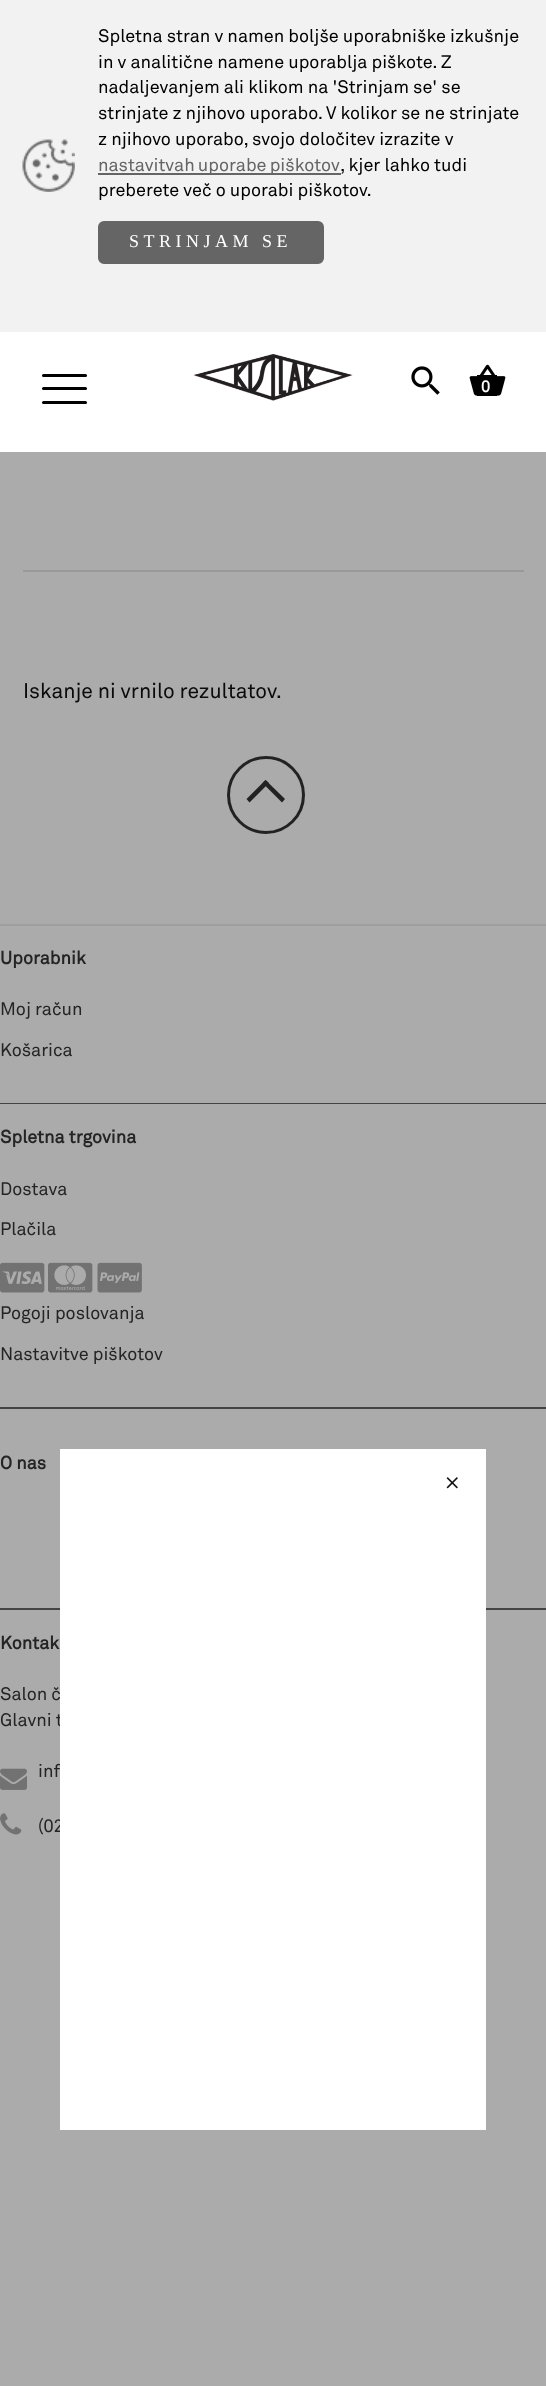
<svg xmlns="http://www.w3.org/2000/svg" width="546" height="2386">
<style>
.a{font:18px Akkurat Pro;fill:#000}
.b{font:18px Akkurat Pro;fill:#656565}
.c{font:18px Liberation Serif;letter-spacing:4.5px;fill:#fff}
.d{font:bold 16px Akkurat Pro;fill:#fff}
.e{font:21px Akkurat Pro;fill:#0b0b0b}
.f{font:bold 18px Akkurat Pro;fill:#242424}
.g{font:18px Akkurat Pro;fill:#242424}
</style>
<rect width="100%" height="100%" fill="#ababab"/>
<path fill="#f2f2f2" d="M0 0h546v332H0z"/>
<image href="1.png" x="22" y="139" width="53" height="53"/>
<path fill="#656565" d="M98 173h243v2H98z"/>
<rect fill="#656565" stroke="#656565" stroke-width="2" x="99" y="222" width="224" height="41" rx="5"/>
<path fill="#fff" d="M0 332h546v120H0z"/>
<rect fill="#000" x="42" y="374" width="45" height="3" rx="1.5"/>
<rect fill="#000" x="42" y="387" width="45" height="3" rx="1.5"/>
<rect fill="#000" x="42" y="401" width="45" height="3" rx="1.5"/>
<image href="2.png" x="193" y="354" width="160" height="47"/>
<image href="3.png" x="411" y="366" width="29" height="29"/>
<image href="4.png" x="469" y="364" width="37" height="32"/>
<path fill="#000" d="M477 375h20v21H477z"/>
<path fill="#999" d="M23 570h501v2H23z"/>
<circle fill="none" stroke="#222" stroke-width="3" cx="266" cy="795" r="37.5"/>
<path fill="#222" d="M246.5 799l19-19l3.5 3l-19.5 19.5z"/>
<path fill="#222" d="M262.5 783l3-3l19.5 19l-3 3.5z"/>
<path fill="#9f9f9f" d="M0 924h546v2H0z"/>
<path fill="#444" d="M0 1103h546v1H0z"/>
<path fill="#444" d="M0 1407h546v2H0z"/>
<image href="5.png" x="0" y="1262" width="45" height="31"/>
<image href="6.png" x="48" y="1262" width="45" height="31"/>
<image href="7.png" x="97" y="1262" width="45" height="31"/>
<path fill="#444" d="M0 1608h546v2H0z"/>
<image href="8.png" x="0" y="1768" width="27" height="22"/>
<image href="9.png" x="0" y="1813" width="22" height="22"/>
<text class="a" x="98" y="42">Spletna stran v namen boljše uporabniške izkušnje</text>
<text class="a" x="98" y="68">in v analitične namene uporablja piškote. Z</text>
<text class="a" x="98" y="93">nadaljevanjem ali klikom na 'Strinjam se' se</text>
<text class="a" x="98" y="119">strinjate z njihovo uporabo. V kolikor se ne strinjate</text>
<text class="a" x="98" y="145">z njihovo uporabo, svojo določitev izrazite v</text>
<text class="b" x="98" y="171" word-spacing="-1">nastavitvah uporabe piškotov</text>
<text class="a" x="340" y="171">, kjer lahko tudi</text>
<text class="a" x="98" y="196">preberete več o uporabi piškotov.</text>
<text class="c" x="129" y="247">STRINJAM SE</text>
<text class="d" x="481" y="392">0</text>
<text class="e" x="23" y="698">Iskanje ni vrnilo rezultatov.</text>
<text class="f" x="0" y="964">Uporabnik</text>
<text class="g" x="0" y="1015">Moj račun</text>
<text class="g" x="0" y="1056">Košarica</text>
<text class="f" x="0" y="1143">Spletna trgovina</text>
<text class="g" x="0" y="1195">Dostava</text>
<text class="g" x="0" y="1235">Plačila</text>
<text class="g" x="0" y="1319">Pogoji poslovanja</text>
<text class="g" x="0" y="1360">Nastavitve piškotov</text>
<text class="f" x="0" y="1469">O nas</text>
<text class="f" x="0" y="1649">Kontak</text>
<text class="g" x="0" y="1700">Salon č</text>
<text class="g" x="0" y="1726">Glavni t</text>
<text class="g" x="38" y="1777">inf</text>
<text class="g" x="38" y="1832">(02</text>
<path fill="#fff" d="M60 1449h426v681H60z"/>
<image href="10.png" x="446" y="1477" width="12" height="12"/>
</svg>
